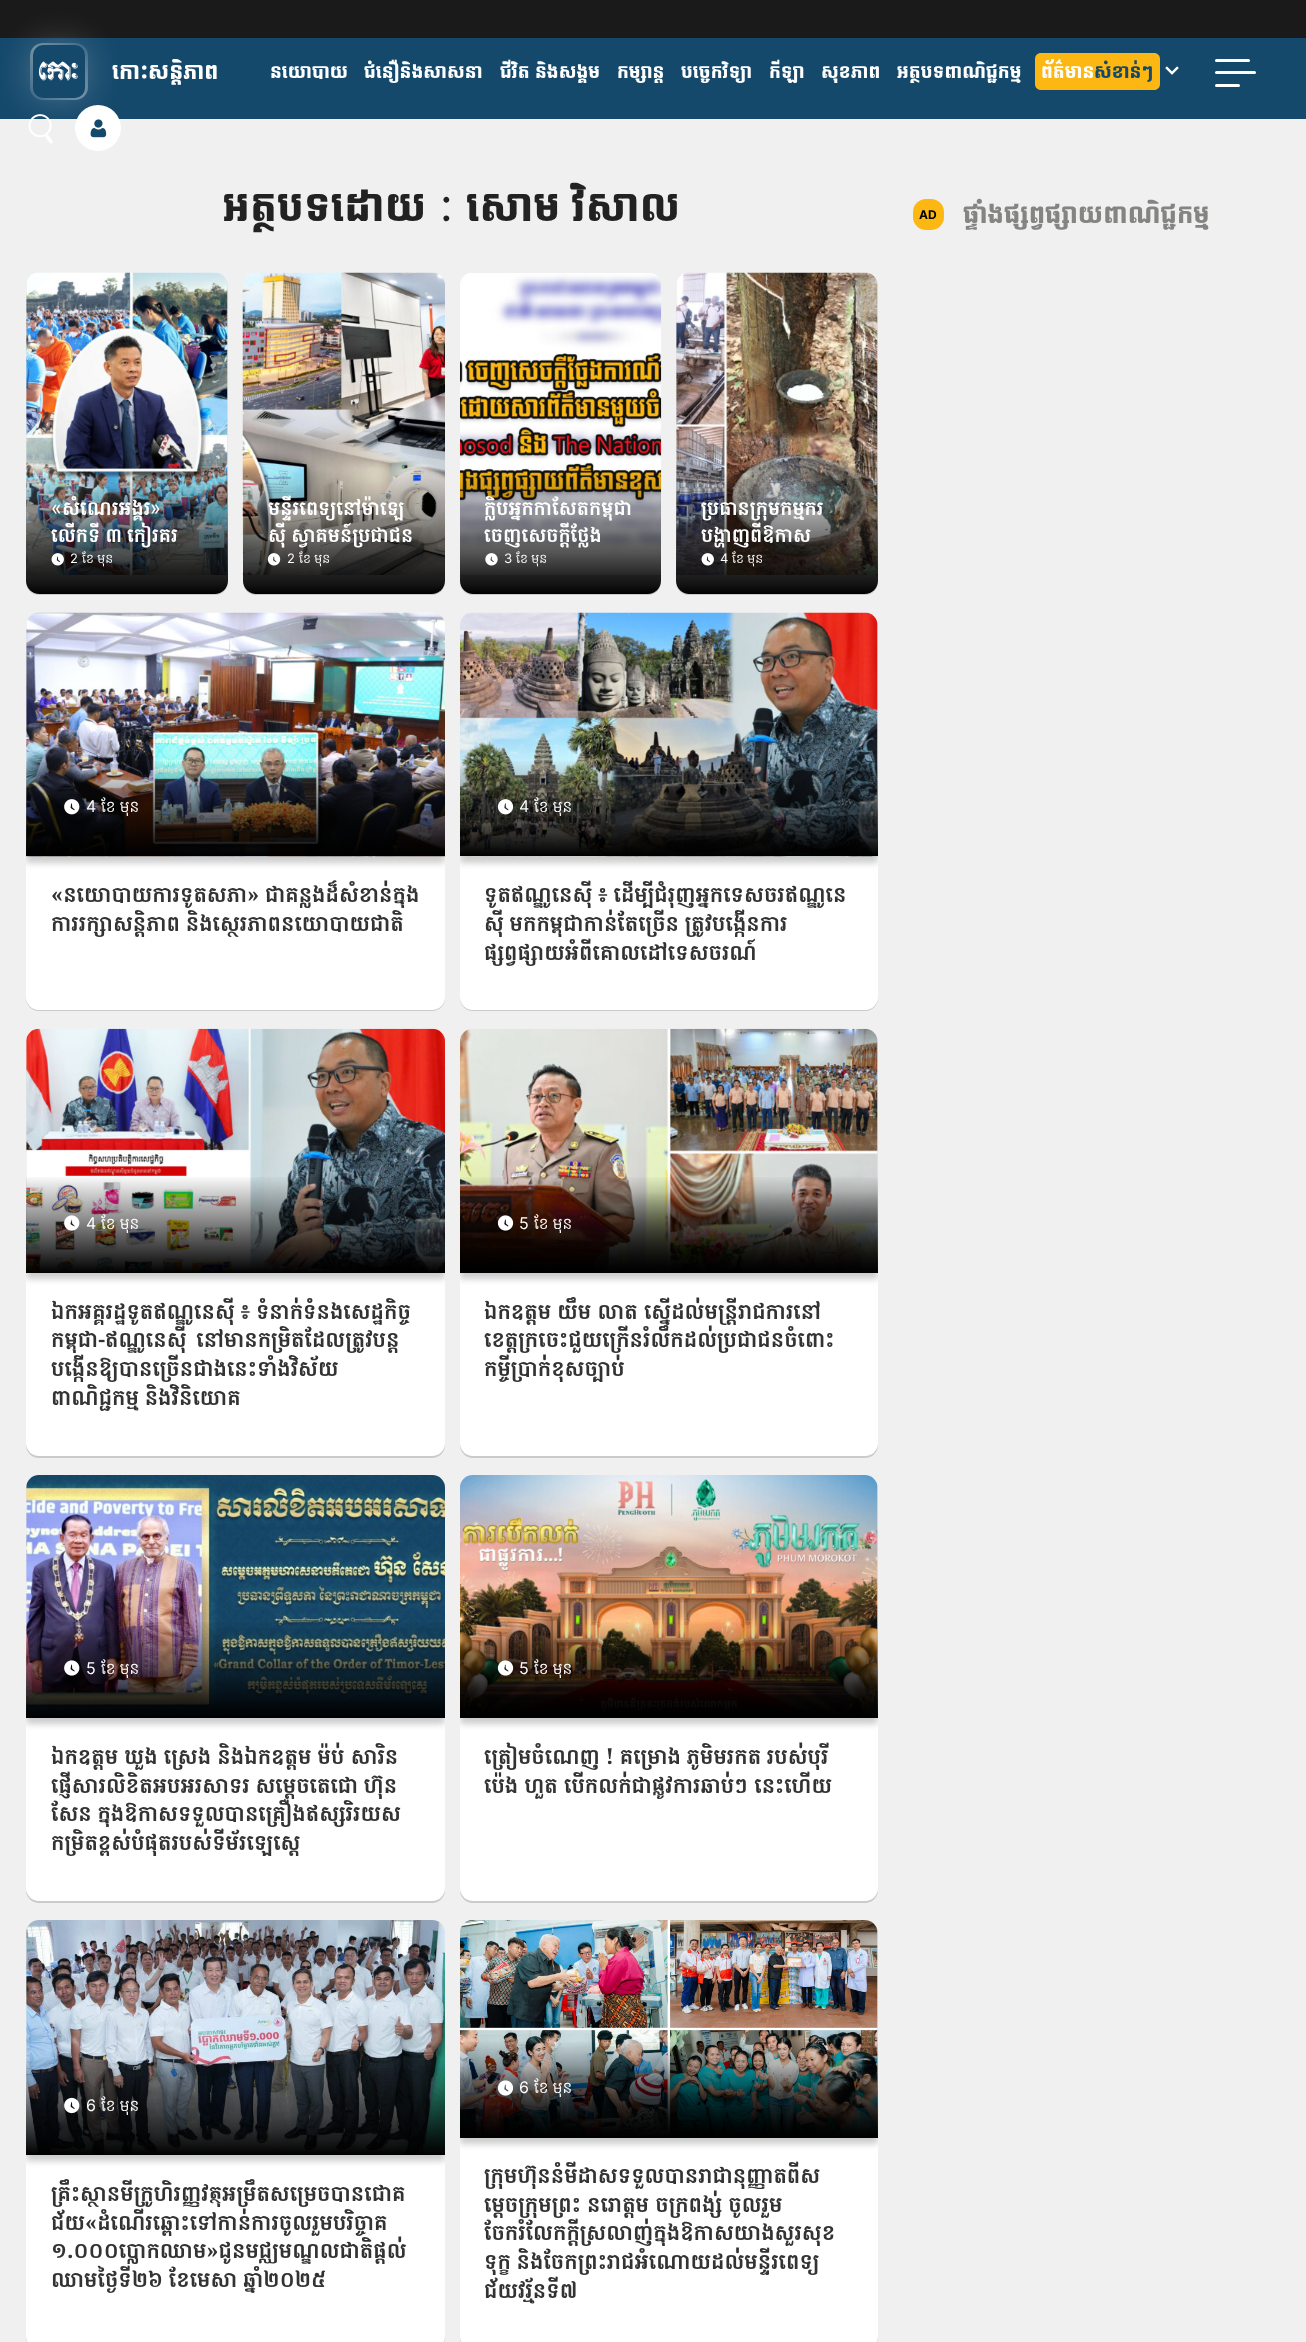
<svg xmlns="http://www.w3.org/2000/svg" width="1306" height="2342">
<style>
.a{font:24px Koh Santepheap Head;fill:#fff}
.b{font:20.25px Koh Santepheap Head;fill:#fff}
.c{font:20.25px Koh Santepheap Head;fill:#15496c}
.d{font:46px Koh Santepheap Head;fill:#222}
.e{font:46px Inter;fill:#222}
.f{font:20px Inter;fill:#fff}
.g{font:bold 20px Koh Santepheap;fill:#fff}
.h{font:13px Inter;fill:#fff}
.i{font:13px Koh Santepheap;fill:#fff}
.j{font:16px Inter;fill:#fff}
.k{font:16px Koh Santepheap;fill:#fff}
.l{font:bold 22px Koh Santepheap;fill:#333}
.m{font:bold 12px Inter;fill:#000}
.n{font:28px Koh Santepheap Head;fill:#848483}
</style>
<defs>
<linearGradient id="g1" gradientUnits="userSpaceOnUse" x1="73" y1="143" x2="217" y2="-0.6"><stop offset="0" stop-color="#fff" stop-opacity="0.1"/><stop offset="0.2" stop-color="#fff" stop-opacity="0.35"/><stop offset="0.4" stop-color="#fff" stop-opacity="0.1"/><stop offset="0.6" stop-color="#fff" stop-opacity="0.35"/><stop offset="0.8" stop-color="#fff" stop-opacity="0.1"/><stop offset="1" stop-color="#fff" stop-opacity="0.35"/></linearGradient>
<clipPath id="clip1"><path d="M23 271h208v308h-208zm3 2h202v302h-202z" clip-rule="evenodd"/></clipPath>
<clipPath id="clip2"><rect x="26" y="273" width="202" height="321" rx="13"/></clipPath>
<linearGradient id="g2" gradientUnits="userSpaceOnUse" x1="127" y1="594" x2="127" y2="469"><stop offset="0" stop-color="#000"/><stop offset="1" stop-color="#000" stop-opacity="0"/></linearGradient>
<clipPath id="clip3"><path d="M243 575h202v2H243z"/></clipPath>
<clipPath id="clip4"><rect x="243" y="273" width="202" height="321" rx="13"/></clipPath>
<linearGradient id="g3" gradientUnits="userSpaceOnUse" x1="344" y1="594" x2="344" y2="469"><stop offset="0" stop-color="#000"/><stop offset="1" stop-color="#000" stop-opacity="0"/></linearGradient>
<clipPath id="clip5"><path d="M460 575h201v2H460z"/></clipPath>
<clipPath id="clip6"><rect x="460" y="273" width="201" height="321" rx="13"/></clipPath>
<linearGradient id="g4" gradientUnits="userSpaceOnUse" x1="561" y1="594" x2="561" y2="469"><stop offset="0" stop-color="#000"/><stop offset="1" stop-color="#000" stop-opacity="0"/></linearGradient>
<clipPath id="clip7"><path d="M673 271h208v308h-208zm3 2h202v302h-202z" clip-rule="evenodd"/></clipPath>
<clipPath id="clip8"><rect x="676" y="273" width="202" height="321" rx="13"/></clipPath>
<linearGradient id="g5" gradientUnits="userSpaceOnUse" x1="777" y1="594" x2="777" y2="469"><stop offset="0" stop-color="#000"/><stop offset="1" stop-color="#000" stop-opacity="0"/></linearGradient>
<clipPath id="clip9"><rect x="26" y="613" width="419" height="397" rx="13"/></clipPath>
<linearGradient id="g6" gradientUnits="userSpaceOnUse" x1="236" y1="856" x2="236" y2="759"><stop offset="0" stop-color="#000"/><stop offset="1" stop-color="#000" stop-opacity="0"/></linearGradient>
<clipPath id="clip10"><rect x="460" y="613" width="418" height="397" rx="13"/></clipPath>
<linearGradient id="g7" gradientUnits="userSpaceOnUse" x1="669" y1="856" x2="669" y2="759"><stop offset="0" stop-color="#000"/><stop offset="1" stop-color="#000" stop-opacity="0"/></linearGradient>
<clipPath id="clip11"><rect x="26" y="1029" width="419" height="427" rx="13"/></clipPath>
<linearGradient id="g8" gradientUnits="userSpaceOnUse" x1="236" y1="1273" x2="236" y2="1175"><stop offset="0" stop-color="#000"/><stop offset="1" stop-color="#000" stop-opacity="0"/></linearGradient>
<clipPath id="clip12"><rect x="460" y="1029" width="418" height="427" rx="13"/></clipPath>
<linearGradient id="g9" gradientUnits="userSpaceOnUse" x1="669" y1="1273" x2="669" y2="1175"><stop offset="0" stop-color="#000"/><stop offset="1" stop-color="#000" stop-opacity="0"/></linearGradient>
<clipPath id="clip13"><rect x="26" y="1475" width="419" height="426" rx="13"/></clipPath>
<linearGradient id="g10" gradientUnits="userSpaceOnUse" x1="236" y1="1718" x2="236" y2="1620"><stop offset="0" stop-color="#000"/><stop offset="1" stop-color="#000" stop-opacity="0"/></linearGradient>
<clipPath id="clip14"><rect x="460" y="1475" width="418" height="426" rx="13"/></clipPath>
<linearGradient id="g11" gradientUnits="userSpaceOnUse" x1="669" y1="1718" x2="669" y2="1620"><stop offset="0" stop-color="#000"/><stop offset="1" stop-color="#000" stop-opacity="0"/></linearGradient>
<clipPath id="clip15"><rect x="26" y="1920" width="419" height="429" rx="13"/></clipPath>
<linearGradient id="g12" gradientUnits="userSpaceOnUse" x1="236" y1="2155" x2="236" y2="2058"><stop offset="0" stop-color="#000"/><stop offset="1" stop-color="#000" stop-opacity="0"/></linearGradient>
<clipPath id="clip16"><rect x="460" y="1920" width="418" height="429" rx="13"/></clipPath>
<linearGradient id="g13" gradientUnits="userSpaceOnUse" x1="669" y1="2138" x2="669" y2="2040"><stop offset="0" stop-color="#000"/><stop offset="1" stop-color="#000" stop-opacity="0"/></linearGradient>
<clipPath id="clip17"><path d="M51 494h152v57H51z"/></clipPath>
<clipPath id="clip18"><path d="M268 494h152v57H268z"/></clipPath>
<clipPath id="clip19"><path d="M485 494h151v57H485z"/></clipPath>
</defs>
<rect width="100%" height="100%" fill="#f0f0f0"/>
<path fill="#1a1a1a" d="M0 0h1306v38H0z"/>
<path fill="#15496c" d="M0 38h1306v81H0z"/>
<rect fill="url(#g1)" x="30" y="43" width="58" height="57" rx="13"/>
<image href="3.png" x="28" y="114" width="25" height="30"/>
<circle fill="#fff" cx="98" cy="128" r="23"/>
<image href="4.png" x="90" y="119" width="17" height="19"/>
<rect fill="#ffffff38" filter="blur(17.5px)" x="30" y="43" width="58" height="57" rx="13"/>
<rect fill="#15496c" x="33" y="45" width="52" height="53" rx="10"/>
<image href="1.png" x="38" y="61" width="40" height="20"/>
<path fill="#fcb713" d="M1041 53h54v37h-54c-3.5 0-6-2.5-6-6v-25c0-3.5 2.5-6 6-6z"/>
<path fill="#fcb713" d="M1095 53h59c3.5 0 6 2.5 6 6v25c0 3.5-2.5 6-6 6h-59z"/>
<image href="2.png" x="1165" y="66" width="14" height="9"/>
<rect fill="#fff" x="1215" y="59" width="35" height="3" rx="1.5"/>
<rect fill="#fff" x="1215" y="71" width="41" height="3" rx="1.5"/>
<rect fill="#fff" x="1215" y="84" width="25" height="3" rx="1.5"/>
<rect fill="#cacaca" filter="blur(0.5px)" x="26" y="274" width="202" height="321" rx="13"/>
<rect fill="#fff" x="26" y="273" width="202" height="321" rx="13"/>
<g clip-path="url(#clip1)">
<path fill="#cacaca" filter="blur(0.5px)" d="M26 274h202v302H26z"/>
</g>
<g clip-path="url(#clip2)">
<path fill="#ccc" filter="blur(3px)" d="M26 279h202v302H26z"/>
</g>
<image href="5.png" x="26" y="272" width="202" height="303"/>
<path fill="url(#g2)" d="M26 469h202v112c0 7-6 13-13 13h-176c-7 0-13-6-13-13z"/>
<image href="6.png" x="51" y="553" width="13" height="13"/>
<rect fill="#cacaca" filter="blur(0.5px)" x="243" y="274" width="202" height="321" rx="13"/>
<rect fill="#fff" x="243" y="273" width="202" height="321" rx="13"/>
<g clip-path="url(#clip3)">
<path fill="#cacaca" filter="blur(0.5px)" d="M243 274h202v302H243z"/>
</g>
<g clip-path="url(#clip4)">
<path fill="#ccc" filter="blur(3px)" d="M243 279h202v302H243z"/>
</g>
<image href="7.png" x="242" y="272" width="203" height="303"/>
<path fill="url(#g3)" d="M243 469h202v112c0 7-6 13-13 13h-176c-7 0-13-6-13-13z"/>
<image href="8.png" x="267" y="553" width="14" height="13"/>
<rect fill="#cacaca" filter="blur(0.5px)" x="460" y="274" width="201" height="321" rx="13"/>
<rect fill="#fff" x="460" y="273" width="201" height="321" rx="13"/>
<g clip-path="url(#clip5)">
<path fill="#cacaca" filter="blur(0.5px)" d="M460 274h201v302H460z"/>
</g>
<g clip-path="url(#clip6)">
<path fill="#ccc" filter="blur(3px)" d="M460 279h201v302H460z"/>
</g>
<image href="9.png" x="460" y="273" width="202" height="302"/>
<path fill="url(#g4)" d="M460 469h201v112c0 7-6 13-13 13h-175c-7 0-13-6-13-13z"/>
<image href="10.png" x="485" y="553" width="13" height="13"/>
<rect fill="#cacaca" filter="blur(0.5px)" x="676" y="274" width="202" height="321" rx="13"/>
<rect fill="#fff" x="676" y="273" width="202" height="321" rx="13"/>
<g clip-path="url(#clip7)">
<path fill="#cacaca" filter="blur(0.5px)" d="M676 274h202v302H676z"/>
</g>
<g clip-path="url(#clip8)">
<path fill="#ccc" filter="blur(3px)" d="M676 279h202v302H676z"/>
</g>
<image href="11.png" x="676" y="272" width="202" height="303"/>
<path fill="url(#g5)" d="M676 469h202v112c0 7-6 13-13 13h-176c-7 0-13-6-13-13z"/>
<image href="12.png" x="701" y="553" width="13" height="13"/>
<rect fill="#cacaca" filter="blur(0.5px)" x="26" y="614" width="419" height="397" rx="13"/>
<rect fill="#fff" x="26" y="613" width="419" height="397" rx="13"/>
<g clip-path="url(#clip9)">
<path fill="#ccc" filter="blur(3px)" d="M26 619h419v244H26z"/>
</g>
<image href="13.png" x="26" y="612" width="419" height="245"/>
<path fill="url(#g6)" d="M26 761h419v95H26z"/>
<image href="14.png" x="64" y="799" width="16" height="16"/>
<rect fill="#cacaca" filter="blur(0.5px)" x="460" y="614" width="418" height="397" rx="13"/>
<rect fill="#fff" x="460" y="613" width="418" height="397" rx="13"/>
<g clip-path="url(#clip10)">
<path fill="#ccc" filter="blur(3px)" d="M460 619h418v244H460z"/>
</g>
<image href="15.png" x="460" y="612" width="418" height="245"/>
<path fill="url(#g7)" d="M460 761h418v95H460z"/>
<image href="16.png" x="497" y="799" width="17" height="16"/>
<rect fill="#cacaca" filter="blur(0.5px)" x="26" y="1030" width="419" height="428" rx="13"/>
<rect fill="#fff" x="26" y="1029" width="419" height="427" rx="13"/>
<g clip-path="url(#clip11)">
<path fill="#ccc" filter="blur(3px)" d="M26 1035h419v244H26z"/>
</g>
<image href="17.png" x="26" y="1028" width="419" height="244"/>
<path fill="url(#g8)" d="M26 1177h419v96H26z"/>
<image href="18.png" x="64" y="1215" width="16" height="16"/>
<rect fill="#cacaca" filter="blur(0.5px)" x="460" y="1030" width="418" height="428" rx="13"/>
<rect fill="#fff" x="460" y="1029" width="418" height="427" rx="13"/>
<g clip-path="url(#clip12)">
<path fill="#ccc" filter="blur(3px)" d="M460 1035h418v244H460z"/>
</g>
<image href="19.png" x="460" y="1028" width="418" height="244"/>
<path fill="url(#g9)" d="M460 1177h418v96H460z"/>
<image href="20.png" x="497" y="1215" width="17" height="16"/>
<rect fill="#cacaca" filter="blur(0.5px)" x="26" y="1476" width="419" height="427" rx="13"/>
<rect fill="#fff" x="26" y="1475" width="419" height="426" rx="13"/>
<g clip-path="url(#clip13)">
<path fill="#ccc" filter="blur(3px)" d="M26 1481h419v243H26z"/>
</g>
<image href="21.png" x="26" y="1475" width="419" height="242"/>
<path fill="url(#g10)" d="M26 1622h419v96H26z"/>
<image href="22.png" x="64" y="1660" width="16" height="16"/>
<rect fill="#cacaca" filter="blur(0.5px)" x="460" y="1476" width="418" height="427" rx="13"/>
<rect fill="#fff" x="460" y="1475" width="418" height="426" rx="13"/>
<g clip-path="url(#clip14)">
<path fill="#ccc" filter="blur(3px)" d="M460 1481h418v243H460z"/>
</g>
<image href="23.png" x="460" y="1475" width="418" height="242"/>
<path fill="url(#g11)" d="M460 1622h418v96H460z"/>
<image href="24.png" x="497" y="1660" width="17" height="16"/>
<rect fill="#cacaca" filter="blur(0.5px)" x="26" y="1921" width="419" height="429" rx="13"/>
<rect fill="#fff" x="26" y="1920" width="419" height="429" rx="13"/>
<g clip-path="url(#clip15)">
<path fill="#ccc" filter="blur(3px)" d="M26 1926h419v235H26z"/>
</g>
<image href="25.png" x="26" y="1920" width="419" height="234"/>
<path fill="url(#g12)" d="M26 2060h419v95H26z"/>
<image href="26.png" x="64" y="2097" width="16" height="17"/>
<rect fill="#cacaca" filter="blur(0.5px)" x="460" y="1921" width="418" height="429" rx="13"/>
<rect fill="#fff" x="460" y="1920" width="418" height="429" rx="13"/>
<g clip-path="url(#clip16)">
<path fill="#ccc" filter="blur(3px)" d="M460 1926h418v218H460z"/>
</g>
<image href="27.png" x="460" y="1920" width="418" height="217"/>
<path fill="url(#g13)" d="M460 2042h418v96H460z"/>
<image href="28.png" x="497" y="2080" width="17" height="16"/>
<rect fill="#fcb713" x="913" y="199" width="31" height="31" rx="13"/>
<text class="a" x="112" y="79">កោះសន្តិភាព</text>
<text class="b" x="270" y="78">នយោបាយ</text>
<text class="b" x="364" y="78">ជំនឿនិងសាសនា</text>
<text class="b" x="500" y="78">ជីវិត និងសង្គម</text>
<text class="b" x="617" y="78">កម្សាន្ត</text>
<text class="b" x="681" y="78">បច្ចេកវិទ្យា</text>
<text class="b" x="769" y="78">កីឡា</text>
<text class="b" x="821" y="78">សុខភាព</text>
<text class="b" x="897" y="78">អត្ថបទពាណិជ្ជកម្ម</text>
<text class="b" x="1041" y="78">ព័ត៌មាន</text>
<text class="c" x="1094" y="78">សំខាន់ៗ</text>
<text class="d" x="223" y="221">អត្ថបទដោយ</text>
<text class="e" x="440" y="221">:</text>
<text class="d" x="466" y="221">សោម វិសាល</text>
<text class="f" x="51" y="515">«</text>
<text class="g" x="62" y="515">សំណេរអង្គរ</text>
<text class="f" x="150" y="515">»</text>
<g clip-path="url(#clip17)">
<text class="g" x="51" y="542">លើកទី ៣ កៀរគរ</text>
</g>
<text class="h" x="70" y="563">2</text>
<text class="i" x="82" y="563">ខែ មុន</text>
<text class="g" x="268" y="515">មន្ទីរពេទ្យនៅម៉ាឡេ</text>
<g clip-path="url(#clip18)">
<text class="g" x="268" y="542">ស៊ី ស្វាគមន៍ប្រជាជន</text>
</g>
<text class="h" x="287" y="563">2</text>
<text class="i" x="299" y="563">ខែ មុន</text>
<g clip-path="url(#clip19)">
<text class="g" x="484" y="515">ក្លិបអ្នកកាសែតកម្ពុជា</text>
</g>
<text class="g" x="484" y="542">ចេញសេចក្តីថ្លែង</text>
<text class="h" x="504" y="563">3</text>
<text class="i" x="516" y="563">ខែ មុន</text>
<text class="g" x="701" y="515">ប្រធានក្រុមកម្មករ</text>
<text class="g" x="701" y="542">បង្ហាញពីឱកាស</text>
<text class="h" x="720" y="563">4</text>
<text class="i" x="732" y="563">ខែ មុន</text>
<text class="j" x="86" y="812">4</text>
<text class="k" x="101" y="812">ខែ មុន</text>
<text class="l" x="51" y="902">«នយោបាយការទូតសភា» ជាគន្លងដ៏សំខាន់ក្នុង</text>
<text class="l" x="51" y="931">ការរក្សាសន្តិភាព និងស្ថេរភាពនយោបាយជាតិ</text>
<text class="j" x="519" y="812">4</text>
<text class="k" x="534" y="812">ខែ មុន</text>
<text class="l" x="484" y="902">ទូតឥណ្ឌូនេស៊ី ៖ ដើម្បីជំរុញអ្នកទេសចរឥណ្ឌូនេ</text>
<text class="l" x="484" y="931">ស៊ី មកកម្ពុជាកាន់តែច្រើន ត្រូវបង្កើនការ</text>
<text class="l" x="484" y="960">ផ្សព្វផ្សាយអំពីគោលដៅទេសចរណ៍</text>
<text class="j" x="86" y="1229">4</text>
<text class="k" x="101" y="1229">ខែ មុន</text>
<text class="l" x="51" y="1319">ឯកអគ្គរដ្ឋទូតឥណ្ឌូនេស៊ី ៖ ទំនាក់ទំនងសេដ្ឋកិច្ច</text>
<text class="l" x="51" y="1347" word-spacing="4">កម្ពុជា-ឥណ្ឌូនេស៊ី នៅមានកម្រិតដែលត្រូវបន្ត</text>
<text class="l" x="51" y="1376">បង្កើនឱ្យបានច្រើនជាងនេះទាំងវិស័យ</text>
<text class="l" x="51" y="1405">ពាណិជ្ជកម្ម និងវិនិយោគ</text>
<text class="j" x="519" y="1229">5</text>
<text class="k" x="534" y="1229">ខែ មុន</text>
<text class="l" x="484" y="1319" word-spacing="0.5">ឯកឧត្តម យឹម លាត ស្នើដល់មន្ត្រីរាជការនៅ</text>
<text class="l" x="484" y="1347">ខេត្តក្រចេះជួយក្រើនរំលឹកដល់ប្រជាជនចំពោះ</text>
<text class="l" x="484" y="1376">កម្ចីប្រាក់ខុសច្បាប់</text>
<text class="j" x="86" y="1674">5</text>
<text class="k" x="101" y="1674">ខែ មុន</text>
<text class="l" x="51" y="1764" word-spacing="0.5">ឯកឧត្តម ឃួង ស្រេង និងឯកឧត្តម ម៉ប់ សារិន</text>
<text class="l" x="51" y="1793">ផ្ញើសារលិខិតអបអរសាទរ សម្ដេចតេជោ ហ៊ុន</text>
<text class="l" x="51" y="1821">សែន ក្នុងឱកាសទទួលបានគ្រឿងឥស្សរិរយស</text>
<text class="l" x="51" y="1850">កម្រិតខ្ពស់បំផុតរបស់ទីម័រឡេស្តេ</text>
<text class="j" x="519" y="1674">5</text>
<text class="k" x="534" y="1674">ខែ មុន</text>
<text class="l" x="484" y="1764">ត្រៀមចំណេញ ! គម្រោង ភូមិមរកត របស់បុរី</text>
<text class="l" x="484" y="1793" word-spacing="0.5">ប៉េង ហួត បើកលក់ជាផ្លូវការឆាប់ៗ នេះហើយ</text>
<text class="j" x="86" y="2111">6</text>
<text class="k" x="101" y="2111">ខែ មុន</text>
<text class="l" x="51" y="2201">គ្រឹះស្ថានមីក្រូហិរញ្ញវត្ថុអម្រឹតសម្រេចបានជោគ</text>
<text class="l" x="51" y="2230">ជ័យ«ដំណើរឆ្ពោះទៅកាន់ការចូលរួមបរិច្ចាគ</text>
<text class="l" x="51" y="2258">១.០០០ប្លោកឈាម»ជូនមជ្ឈមណ្ឌលជាតិផ្តល់</text>
<text class="l" x="51" y="2287">ឈាមថ្ងៃទី២៦ ខែមេសា ឆ្នាំ២០២៥</text>
<text class="j" x="519" y="2093">6</text>
<text class="k" x="534" y="2093">ខែ មុន</text>
<text class="l" x="484" y="2183">ក្រុមហ៊ុននំមីដាសទទួលបានរាជានុញ្ញាតពីស</text>
<text class="l" x="484" y="2212" word-spacing="0.5">ម្តេចក្រុមព្រះ នរោត្តម ចក្រពង្ស់ ចូលរួម</text>
<text class="l" x="484" y="2240">ចែករំលែកក្តីស្រលាញ់ក្នុងឱកាសយាងសួរសុខ</text>
<text class="l" x="484" y="2269">ទុក្ខ និងចែកព្រះរាជអំណោយដល់មន្ទីរពេទ្យ</text>
<text class="l" x="484" y="2298">ជ័យវរ្ម័នទី៧</text>
<text class="m" x="919" y="219">AD</text>
<text class="n" x="963" y="223">ផ្ទាំងផ្សព្វផ្សាយពាណិជ្ជកម្ម</text>
</svg>
